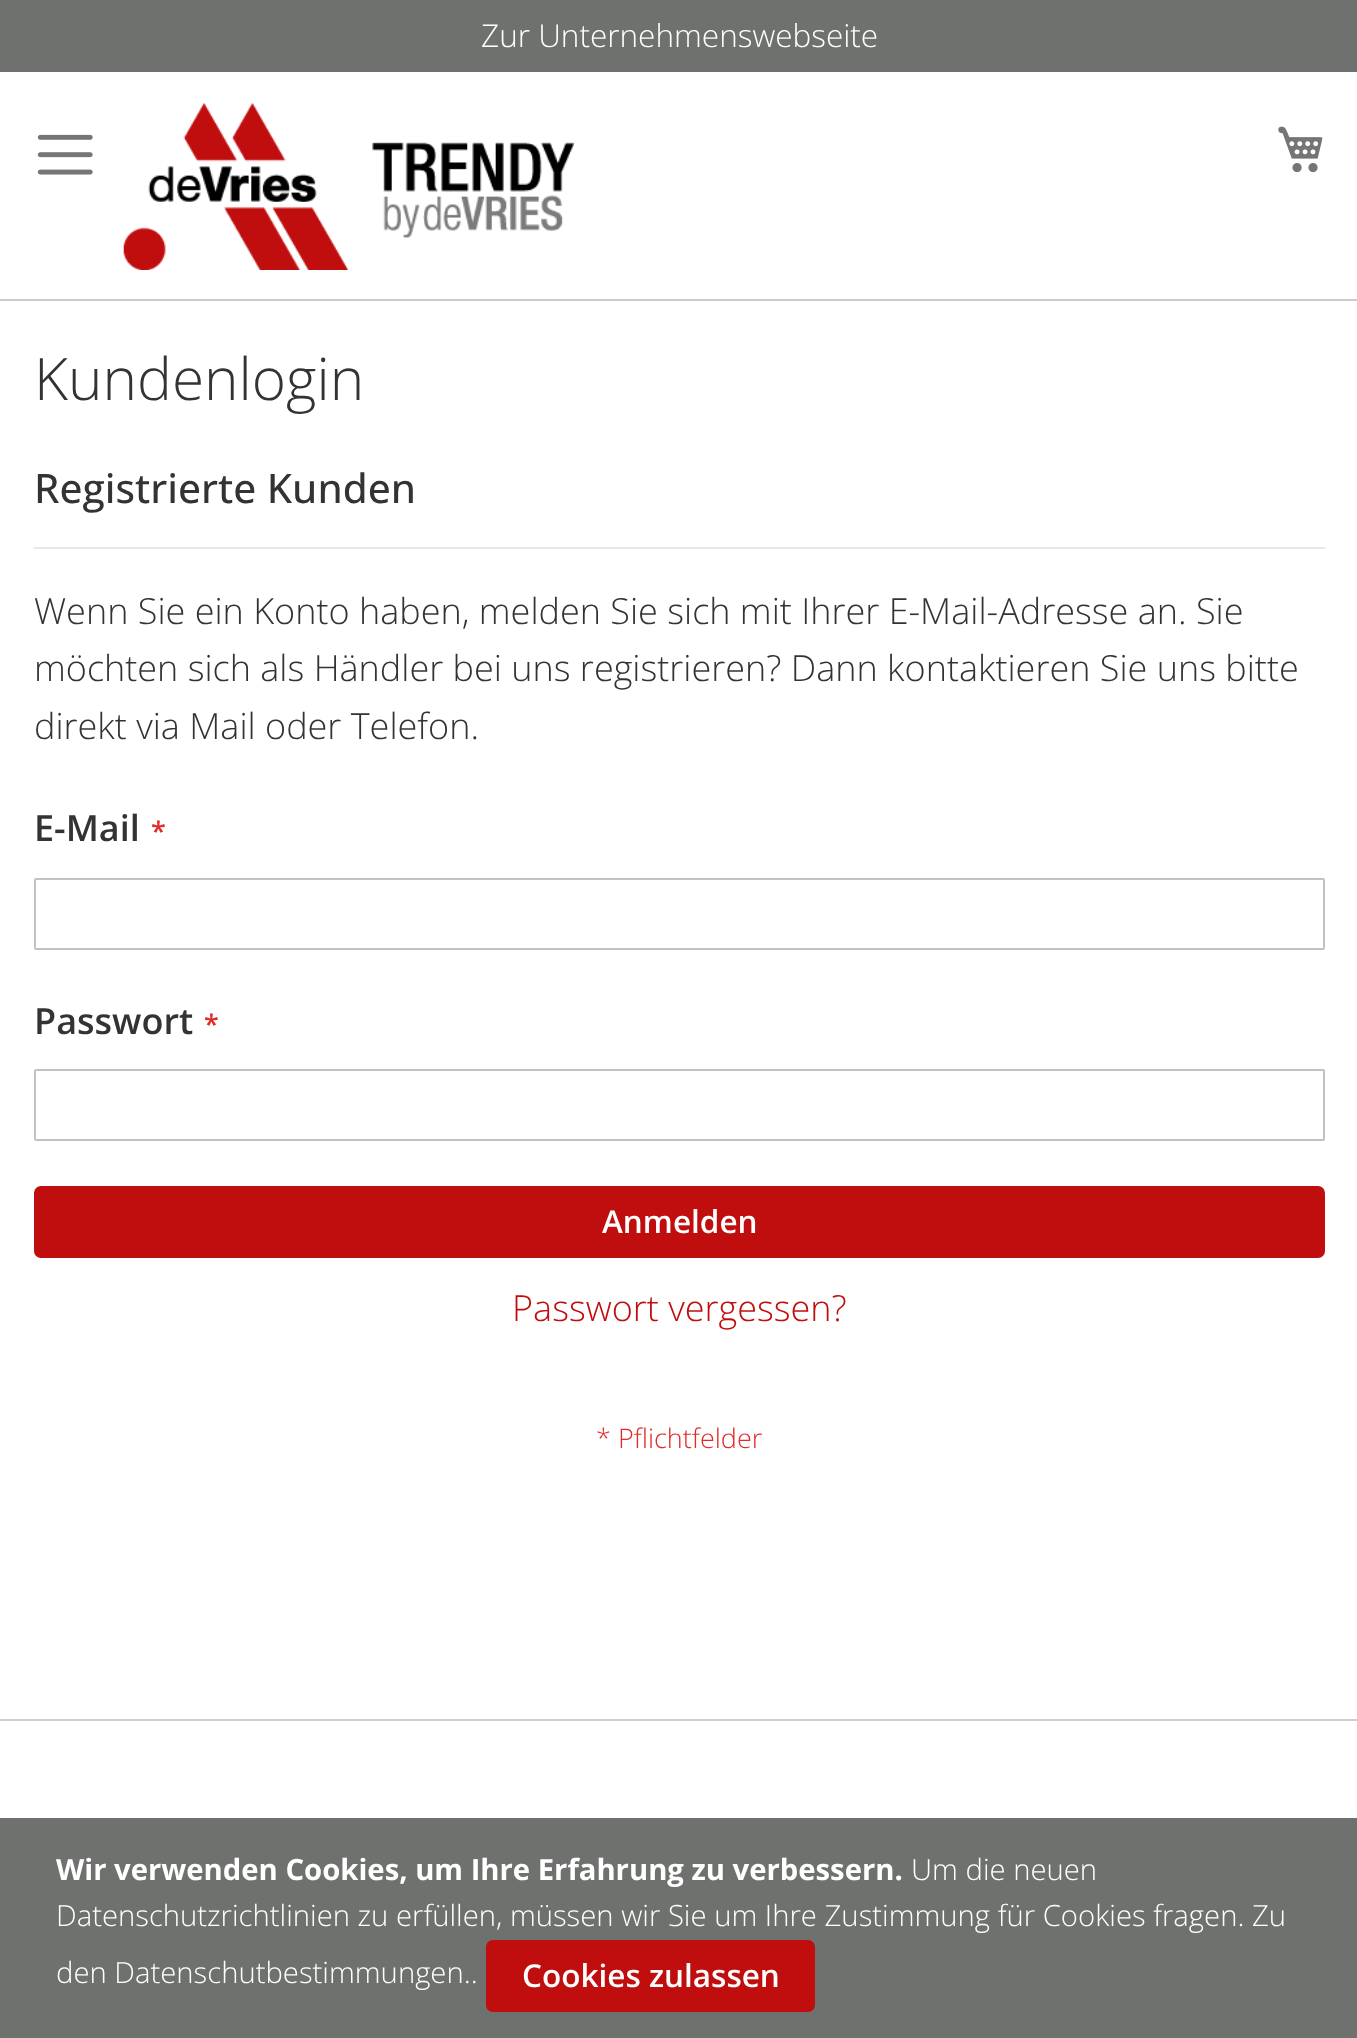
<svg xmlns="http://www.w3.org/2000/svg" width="1357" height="2038">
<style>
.a{font:300 31.5px Open Sans;fill:#fff}
.b{font:300 58.5px Open Sans;fill:#333}
.c{font:500 40.5px Open Sans;fill:#333}
.d{font:300 36px Open Sans;fill:#333}
.e{font:600 36px Open Sans;fill:#333}
.f{font:600 27px Open Sans;fill:#e02b27}
.g{font:600 31.5px Open Sans;fill:#fff}
.h{font:300 36px Open Sans;fill:#c00d0e}
.i{font:300 27px Open Sans;fill:#e02b27}
.j{font:bold 29.25px Open Sans;fill:#fff}
.k{font:300 29.25px Open Sans;fill:#fff}
</style>
<rect width="100%" height="100%" fill="#fff"/>
<path fill="#ccc" d="M0 299h1357v2H0z"/>
<path fill="#6e716e" d="M0 0h1357v72H0z"/>
<image href="1.png" x="37" y="134" width="56" height="41"/>
<image href="2.png" x="123" y="103" width="451" height="167"/>
<image href="3.png" x="1278" y="126" width="45" height="47"/>
<path fill="#e8e8e8" d="M34 547h1291v2H34z"/>
<rect fill="none" stroke="#c2c2c2" stroke-width="2" x="35" y="879" width="1289" height="70" rx="1"/>
<rect fill="none" stroke="#c2c2c2" stroke-width="2" x="35" y="1070" width="1289" height="70" rx="1"/>
<rect fill="#c00d0e" stroke="#c00d0e" stroke-width="2" x="35" y="1187" width="1289" height="70" rx="6"/>
<path fill="#cecece" d="M0 1719h1357v2H0z"/>
<path fill="#6e716e" d="M0 1818h1357v220H0z"/>
<rect fill="#c00d0e" stroke="#c00d0e" stroke-width="2" x="487" y="1941" width="327" height="70" rx="6"/>
<text class="a" x="481" y="47">Zur Unternehmenswebseite</text>
<text class="b" x="34" y="400">Kundenlogin</text>
<text class="c" x="34" y="503">Registrierte Kunden</text>
<text class="d" x="34" y="624">Wenn Sie ein Konto haben, melden Sie sich mit Ihrer E-Mail-Adresse an. Sie</text>
<text class="d" x="34" y="681">möchten sich als Händler bei uns registrieren? Dann kontaktieren Sie uns bitte</text>
<text class="d" x="34" y="739">direkt via Mail oder Telefon.</text>
<text class="e" x="34" y="841">E-Mail</text>
<text class="f" x="151" y="841">*</text>
<text class="e" x="34" y="1034">Passwort</text>
<text class="f" x="204" y="1034">*</text>
<text class="g" x="602" y="1233">Anmelden</text>
<text class="h" x="512" y="1321">Passwort vergessen?</text>
<text class="i" x="596" y="1448">* Pflichtfelder</text>
<text class="j" x="56" y="1880">Wir verwenden Cookies, um Ihre Erfahrung zu verbessern.</text>
<text class="k" x="911" y="1880">Um die neuen</text>
<text class="k" x="56" y="1926">Datenschutzrichtlinien zu erfüllen, müssen wir Sie um Ihre Zustimmung für Cookies fragen. Zu</text>
<text class="k" x="56" y="1983">den Datenschutbestimmungen..</text>
<text class="g" x="522" y="1987">Cookies zulassen</text>
</svg>
